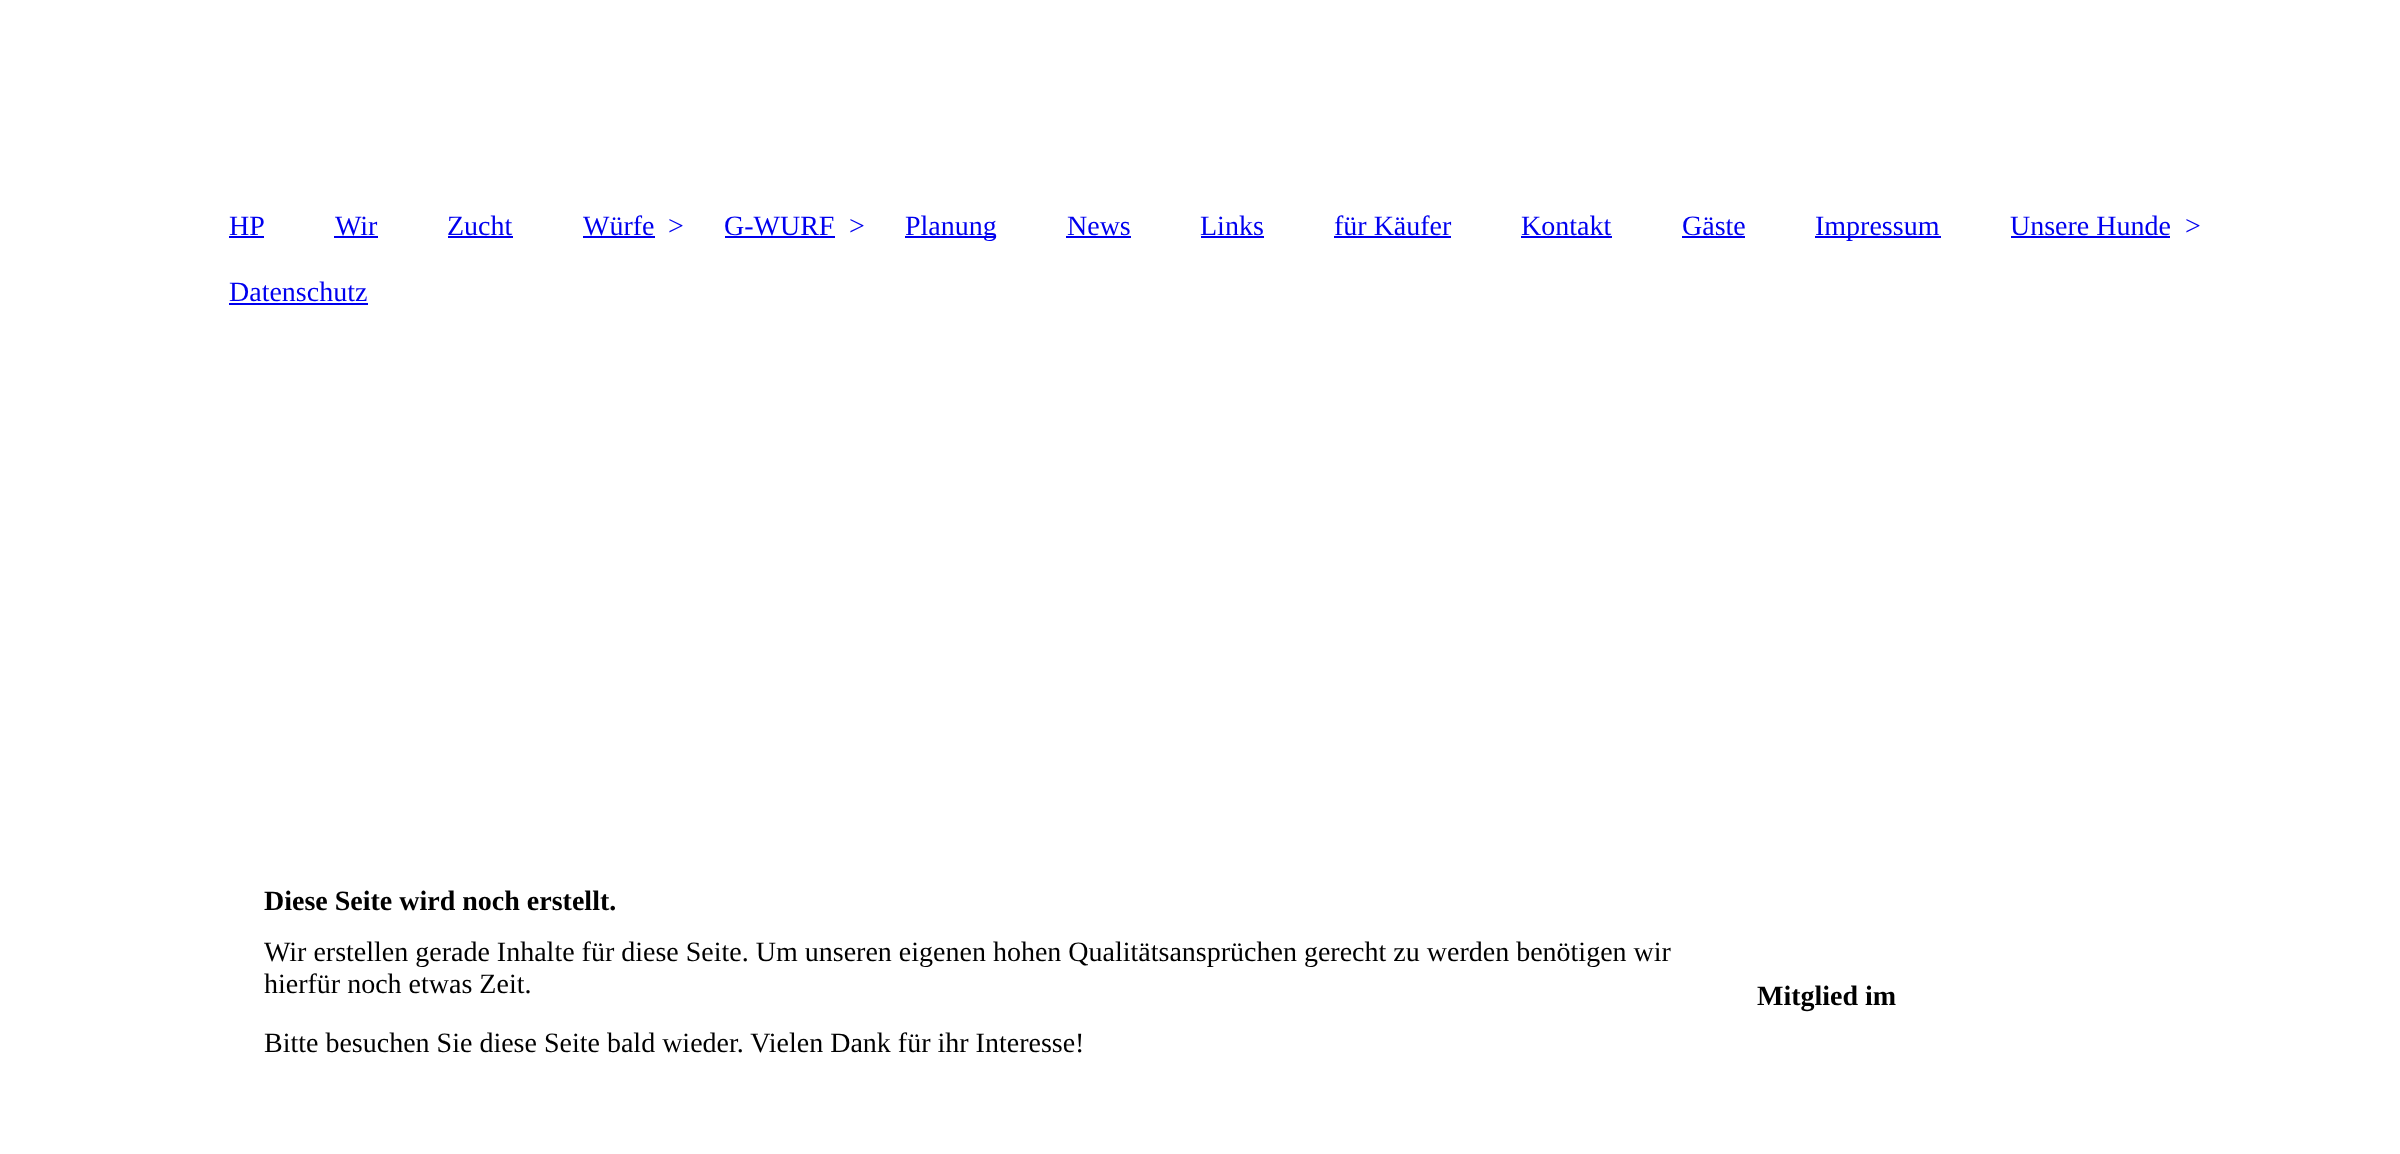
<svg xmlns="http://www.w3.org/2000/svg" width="2400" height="1154">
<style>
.a{font:28px Liberation Serif;fill:#00e}
.b{font:bold 28px Liberation Serif;fill:#000}
.c{font:28px Liberation Serif;fill:#000}
</style>
<rect width="100%" height="100%" fill="#fff"/>
<path fill="#00e" d="M229 236h35v2H229z"/>
<path fill="#00e" d="M334 236h44v2H334z"/>
<path fill="#00e" d="M448 236h65v2H448z"/>
<path fill="#00e" d="M583 236h72v2H583z"/>
<path fill="#00e" d="M725 236h110v2H725z"/>
<path fill="#00e" d="M905 236h91v2H905z"/>
<path fill="#00e" d="M1066 236h65v2H1066z"/>
<path fill="#00e" d="M1201 236h63v2H1201z"/>
<path fill="#00e" d="M1334 236h117v2H1334z"/>
<path fill="#00e" d="M1521 236h91v2H1521z"/>
<path fill="#00e" d="M1682 236h63v2H1682z"/>
<path fill="#00e" d="M1815 236h126v2H1815z"/>
<path fill="#00e" d="M2011 236h159v2H2011z"/>
<path fill="#00e" d="M229 303h139v2H229z"/>
<text class="a" x="229" y="235">HP</text>
<text class="a" x="335" y="235">Wir</text>
<text class="a" x="447" y="235">Zucht</text>
<text class="a" x="583" y="235">Würfe</text>
<text class="a" x="668" y="235">&gt;</text>
<text class="a" x="724" y="235">G-WURF</text>
<text class="a" x="849" y="235">&gt;</text>
<text class="a" x="905" y="235">Planung</text>
<text class="a" x="1067" y="235">News</text>
<text class="a" x="1200" y="235">Links</text>
<text class="a" x="1334" y="235">für Käufer</text>
<text class="a" x="1521" y="235">Kontakt</text>
<text class="a" x="1682" y="235">Gäste</text>
<text class="a" x="1815" y="235">Impressum</text>
<text class="a" x="2010" y="235">Unsere Hunde</text>
<text class="a" x="2185" y="235">&gt;</text>
<text class="a" x="229" y="301">Datenschutz</text>
<text class="b" x="264" y="910">Diese Seite wird noch erstellt.</text>
<text class="c" x="264" y="961">Wir erstellen gerade Inhalte für diese Seite. Um unseren eigenen hohen Qualitätsansprüchen gerecht zu werden benötigen wir</text>
<text class="c" x="264" y="993">hierfür noch etwas Zeit.</text>
<text class="c" x="264" y="1052">Bitte besuchen Sie diese Seite bald wieder. Vielen Dank für ihr Interesse!</text>
<text class="b" x="1757" y="1005">Mitglied im</text>
</svg>
